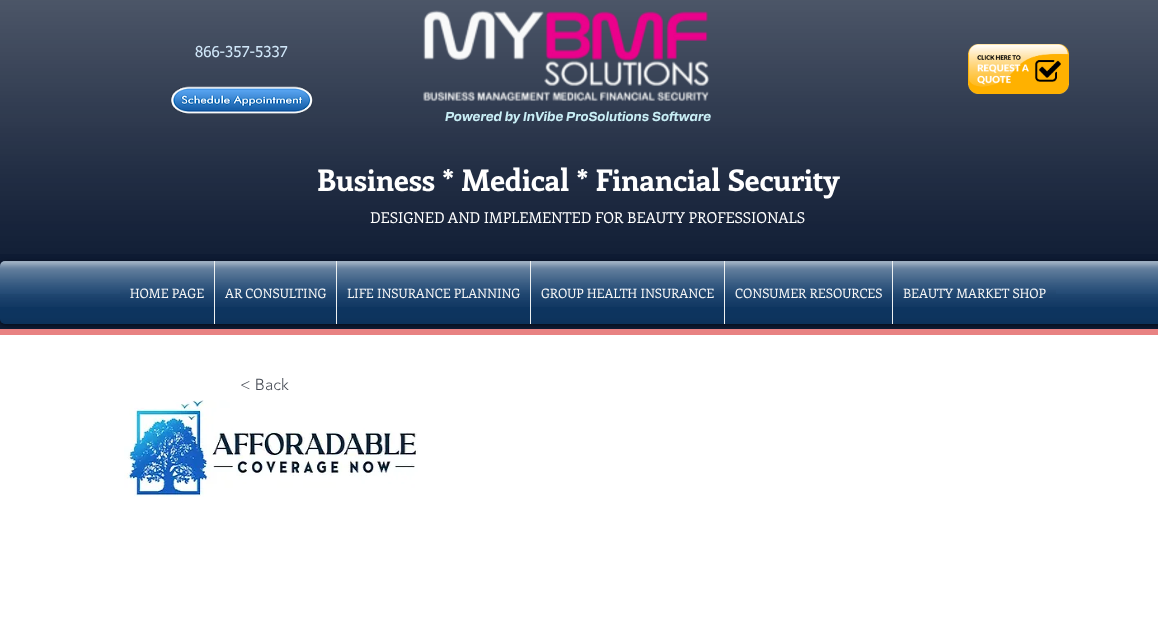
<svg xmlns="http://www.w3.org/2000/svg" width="1158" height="617">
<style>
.a{font:15px tahoma;fill:#d0e7f9}
.b{font:italic bold 13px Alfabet;fill:#c8eef5}
.c{font:bold 30px Enriqueta;fill:#fff}
.d{font:15px Enriqueta;fill:#fff}
.e{font:13px Enriqueta;fill:#fff}
.f{font:300 16px 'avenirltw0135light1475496';fill:#484d56}
</style>
<rect width="100%" height="100%" fill="#fff"/>
<path fill="#0e1b33" d="M0 0h1158v329H0z"/>
<image href="1.png" x="0" y="0" width="1158" height="254"/>
<image href="2.png" x="423" y="10" width="287" height="92"/>
<image href="3.png" x="968" y="44" width="101" height="50"/>
<image href="4.png" x="170" y="86" width="143" height="28"/>
<rect fill="#00000099" filter="blur(2px)" y="262" width="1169" height="63" rx="5"/>
<rect fill="#0f3a69" y="261" width="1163" height="63" rx="5"/>
<image href="5.png" x="0" y="261" width="1158" height="46"/>
<image href="6.png" x="0" y="294" width="1158" height="30"/>
<path fill="#0f3a69" d="M120 261h94v63H120z"/>
<path fill="#0f3a69" d="M215 261h121v63H215z"/>
<path fill="#ecf0f1" d="M214 261h1v63H214z"/>
<path fill="#0f3a69" d="M337 261h193v63H337z"/>
<path fill="#ecf0f1" d="M336 261h1v63H336z"/>
<path fill="#0f3a69" d="M531 261h193v63H531z"/>
<path fill="#ecf0f1" d="M530 261h1v63H530z"/>
<path fill="#0f3a69" d="M725 261h167v63H725z"/>
<path fill="#ecf0f1" d="M724 261h1v63H724z"/>
<path fill="#0f3a69" d="M893 261h163v63H893z"/>
<path fill="#ecf0f1" d="M892 261h1v63H892z"/>
<path fill="#e88282" d="M0 329h1158v6H0z"/>
<image href="19.png" x="124" y="400" width="294" height="97"/>
<text class="a" x="195" y="57">866-357-5337</text>
<text class="b" x="445" y="121">Powered by InVibe ProSolutions Software</text>
<text class="c" x="317" y="191">Business * Medical * Financial Security</text>
<text class="d" x="370" y="223">DESIGNED AND IMPLEMENTED FOR BEAUTY PROFESSIONALS</text>
<text class="e" x="130" y="298">HOME PAGE</text>
<image href="7.png" x="120" y="261" width="94" height="46"/>
<image href="8.png" x="120" y="290" width="94" height="34"/>
<text class="e" x="225" y="298">AR CONSULTING</text>
<image href="9.png" x="215" y="261" width="121" height="46"/>
<image href="10.png" x="215" y="290" width="121" height="34"/>
<text class="e" x="347" y="298">LIFE INSURANCE PLANNING</text>
<image href="11.png" x="337" y="261" width="193" height="46"/>
<image href="12.png" x="337" y="290" width="193" height="34"/>
<text class="e" x="541" y="298">GROUP HEALTH INSURANCE</text>
<image href="13.png" x="531" y="261" width="193" height="46"/>
<image href="14.png" x="531" y="290" width="193" height="34"/>
<text class="e" x="735" y="298">CONSUMER RESOURCES</text>
<image href="15.png" x="725" y="261" width="167" height="46"/>
<image href="16.png" x="725" y="290" width="167" height="34"/>
<text class="e" x="903" y="298">BEAUTY MARKET SHOP</text>
<image href="17.png" x="893" y="261" width="163" height="46"/>
<image href="18.png" x="893" y="290" width="163" height="34"/>
<text class="f" x="240" y="390">&lt; Back</text>
</svg>
